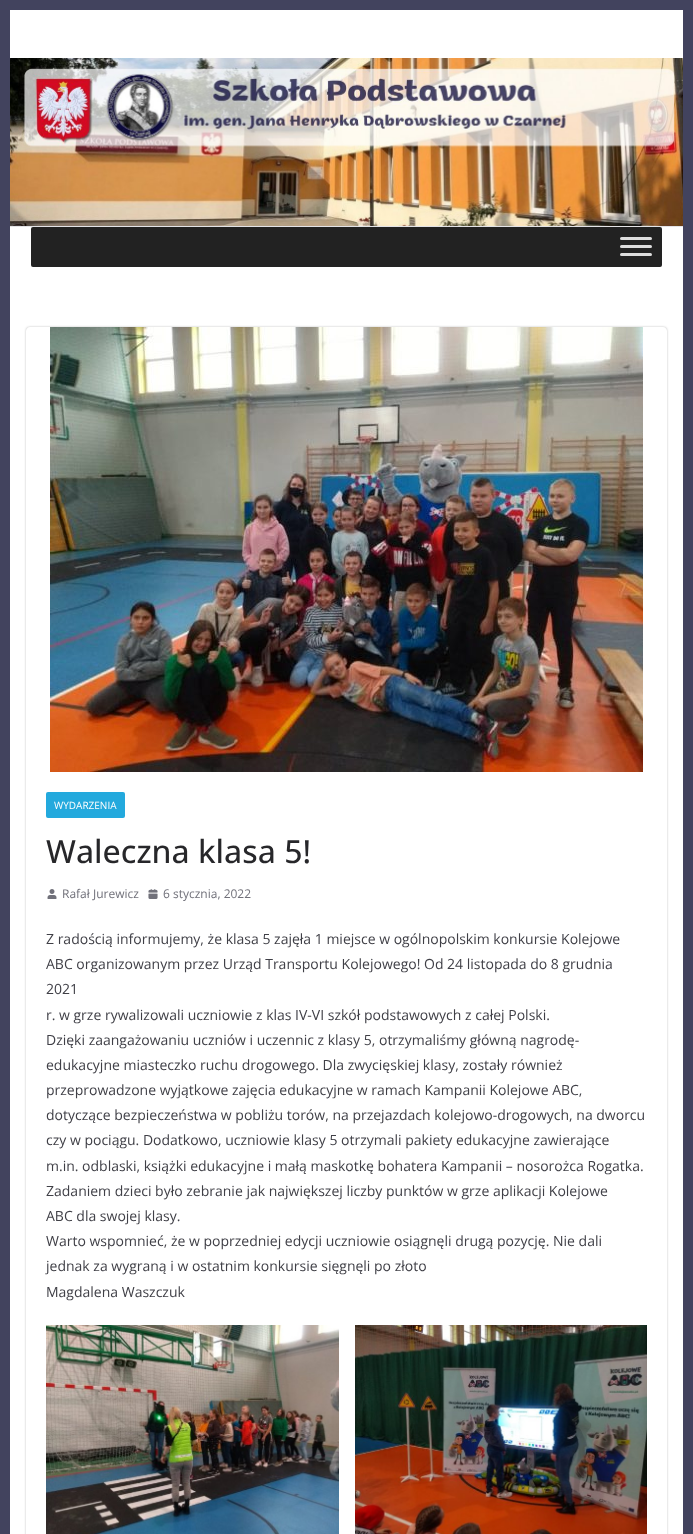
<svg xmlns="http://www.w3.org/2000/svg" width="693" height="1534">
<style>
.a{font:10px Open Sans;fill:#fff}
.b{font:500 32px Open Sans;fill:#27272a}
.c{font:12px Open Sans;fill:#71717a}
.d{font:14px Open Sans;fill:#3f3f46}
</style>
<defs>
<clipPath id="clip1"><path d="M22 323h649v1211h-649zm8 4h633c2 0 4 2 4 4v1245c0 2-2 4-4 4h-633c-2 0-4-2-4-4v-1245c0-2 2-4 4-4z" clip-rule="evenodd"/></clipPath>
</defs>
<rect width="100%" height="100%" fill="#42435e"/>
<path fill="#fff" d="M10 10h673v1524H10z"/>
<image href="1.png" x="10" y="58" width="673" height="168"/>
<path fill="#e4e4e7" d="M10 226h673v1H10z"/>
<rect fill="#222" x="31" y="227" width="631" height="40" rx="2"/>
<rect fill="#ddd" x="620" y="237" width="32" height="3" rx="1.5"/>
<rect fill="#ddd" x="620" y="245" width="32" height="3" rx="1.5"/>
<rect fill="#ddd" x="620" y="253" width="32" height="3" rx="1.5"/>
<g clip-path="url(#clip1)">
<rect fill="#0000003d" filter="blur(1px)" x="26" y="327" width="641" height="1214" rx="4"/>
</g>
<image href="2.png" x="50" y="327" width="593" height="445"/>
<rect fill="#23a9dd" x="46" y="792" width="79" height="26" rx="2"/>
<image href="3.png" x="47" y="889" width="10" height="10"/>
<image href="4.png" x="148" y="889" width="10" height="10"/>
<image href="5.png" x="46" y="1325" width="293" height="209"/>
<image href="6.png" x="355" y="1325" width="292" height="209"/>
<text class="a" x="54" y="809">WYDARZENIA</text>
<text class="b" x="46" y="863">Waleczna klasa 5!</text>
<text class="c" x="62" y="898">Rafał Jurewicz</text>
<text class="c" x="163" y="898">6 stycznia, 2022</text>
<text class="d" x="46" y="944">Z radością informujemy, że klasa 5 zajęła 1 miejsce w ogólnopolskim konkursie Kolejowe</text>
<text class="d" x="46" y="969">ABC organizowanym przez Urząd Transportu Kolejowego! Od 24 listopada do 8 grudnia</text>
<text class="d" x="46" y="994">2021</text>
<text class="d" x="46" y="1020">r. w grze rywalizowali uczniowie z klas IV-VI szkół podstawowych z całej Polski.</text>
<text class="d" x="46" y="1045">Dzięki zaangażowaniu uczniów i uczennic z klasy 5, otrzymaliśmy główną nagrodę-</text>
<text class="d" x="46" y="1070">edukacyjne miasteczko ruchu drogowego. Dla zwycięskiej klasy, zostały również</text>
<text class="d" x="46" y="1095">przeprowadzone wyjątkowe zajęcia edukacyjne w ramach Kampanii Kolejowe ABC,</text>
<text class="d" x="46" y="1120">dotyczące bezpieczeństwa w pobliżu torów, na przejazdach kolejowo-drogowych, na dworcu</text>
<text class="d" x="46" y="1145">czy w pociągu. Dodatkowo, uczniowie klasy 5 otrzymali pakiety edukacyjne zawierające</text>
<text class="d" x="46" y="1171">m.in. odblaski, książki edukacyjne i małą maskotkę bohatera Kampanii – nosorożca Rogatka.</text>
<text class="d" x="46" y="1196">Zadaniem dzieci było zebranie jak największej liczby punktów w grze aplikacji Kolejowe</text>
<text class="d" x="46" y="1221">ABC dla swojej klasy.</text>
<text class="d" x="46" y="1246">Warto wspomnieć, że w poprzedniej edycji uczniowie osiągnęli drugą pozycję. Nie dali</text>
<text class="d" x="46" y="1271">jednak za wygraną i w ostatnim konkursie sięgnęli po złoto</text>
<text class="d" x="46" y="1297">Magdalena Waszczuk</text>
</svg>
